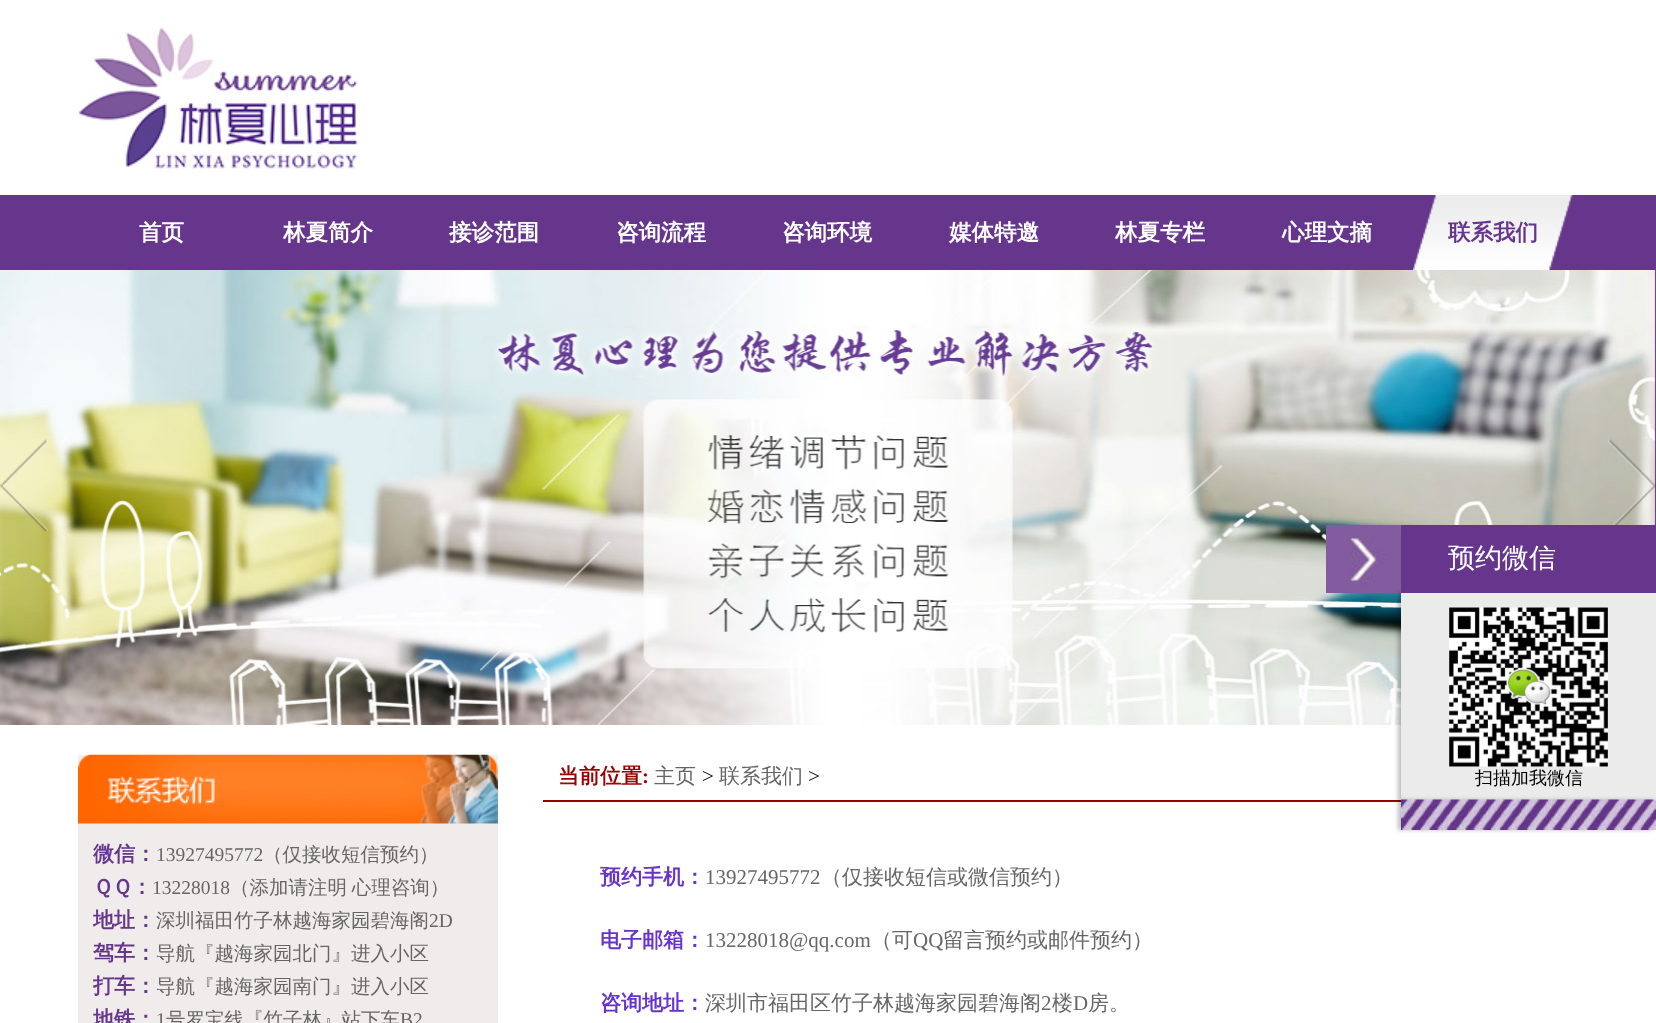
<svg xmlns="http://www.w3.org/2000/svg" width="1656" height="1023">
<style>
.a{font:bold 22.5px WenQuanYi Zen Hei;fill:#fff}
.b{font:bold 22.5px WenQuanYi Zen Hei;fill:#66368c}
.c{font:500 27px WenQuanYi Zen Hei;fill:#fff}
.d{font:500 18px WenQuanYi Zen Hei;fill:#000}
.e{font:bold 21px WenQuanYi Zen Hei;fill:#66368c}
.f{font:19.5px Liberation Serif;fill:#666}
.g{font:500 19.5px WenQuanYi Zen Hei;fill:#666}
.h{font:bold 21px WenQuanYi Zen Hei;fill:#900}
.i{font:bold 21px Liberation Serif;fill:#900}
.j{font:500 21px WenQuanYi Zen Hei;fill:#666}
.k{font:21px Liberation Serif;fill:#000}
.l{font:bold 21px WenQuanYi Zen Hei;fill:#63c}
.m{font:21px Liberation Serif;fill:#666}
</style>
<rect width="100%" height="100%" fill="#fff"/>
<image href="1.png" x="78" y="27" width="280" height="142"/>
<path fill="#66368c" d="M0 195h1656v75H0z"/>
<image href="2.png" x="1413" y="195" width="160" height="75"/>
<image href="3.png" x="0" y="270" width="1656" height="455"/>
<image href="4.png" x="0" y="439" width="49" height="92"/>
<image href="5.png" x="1607" y="439" width="49" height="86"/>
<image href="6.png" x="1326" y="525" width="75" height="68"/>
<path fill="#900" d="M543 800h858v2H543z"/>
<path fill="#00000040" filter="blur(2px)" d="M1398 593h255v207H1398z"/>
<path fill="#66368c" d="M1401 525h255v68H1401z"/>
<path fill="#ebebeb" d="M1401 593h255v207H1401z"/>
<image href="7.png" x="1449" y="607" width="159" height="160"/>
<path fill="#00000040" filter="blur(2px)" d="M1398 800h255v30H1398z"/>
<image href="8.png" x="1401" y="799" width="255" height="31"/>
<path fill="#f1ecec" d="M78 823h420v200H78z"/>
<image href="9.png" x="78" y="754" width="420" height="70"/>
<text class="a" x="139" y="240">首页</text>
<text class="a" x="283" y="240">林夏简介</text>
<text class="a" x="449" y="240">接诊范围</text>
<text class="a" x="616" y="240">咨询流程</text>
<text class="a" x="782" y="240">咨询环境</text>
<text class="a" x="949" y="240">媒体特邀</text>
<text class="a" x="1115" y="240">林夏专栏</text>
<text class="a" x="1282" y="240">心理文摘</text>
<text class="b" x="1448" y="240">联系我们</text>
<text class="c" x="1448" y="567">预约微信</text>
<text class="d" x="1475" y="784">扫描加我微信</text>
<text class="e" x="93" y="861">微信：</text>
<text class="f" x="156" y="861">13927495772</text>
<text class="g" x="263" y="861">（仅接收短信预约）</text>
<text class="e" x="93" y="894">ＱＱ：</text>
<text class="f" x="152" y="894">13228018</text>
<text class="g" x="230" y="894" word-spacing="-1">（添加请注明 心理咨询）</text>
<text class="e" x="93" y="927">地址：</text>
<text class="g" x="156" y="927">深圳福田竹子林越海家园碧海阁</text>
<text class="f" x="429" y="927">2D</text>
<text class="e" x="93" y="960">驾车：</text>
<text class="g" x="156" y="960">导航『越海家园北门』进入小区</text>
<text class="e" x="93" y="993">打车：</text>
<text class="g" x="156" y="993">导航『越海家园南门』进入小区</text>
<text class="e" x="93" y="1026">地铁：</text>
<text class="f" x="156" y="1026">1</text>
<text class="g" x="166" y="1026">号罗宝线『竹子林』站下车</text>
<text class="f" x="400" y="1026">B2</text>
<text class="h" x="558" y="783">当前位置</text>
<text class="i" x="642" y="783">:</text>
<text class="j" x="654" y="783">主页</text>
<text class="k" x="702" y="783">&gt;</text>
<text class="j" x="719" y="783">联系我们</text>
<text class="k" x="808" y="783">&gt;</text>
<text class="l" x="600" y="884">预约手机：</text>
<text class="m" x="705" y="884">13927495772</text>
<text class="j" x="821" y="884">（仅接收短信或微信预约）</text>
<text class="l" x="600" y="947">电子邮箱：</text>
<text class="m" x="705" y="947">13228018@qq.com</text>
<text class="j" x="871" y="947">（可</text>
<text class="m" x="913" y="947">QQ</text>
<text class="j" x="943" y="947">留言预约或邮件预约）</text>
<text class="l" x="600" y="1010">咨询地址：</text>
<text class="j" x="705" y="1010">深圳市福田区竹子林越海家园碧海阁</text>
<text class="m" x="1041" y="1010">2</text>
<text class="j" x="1052" y="1010">楼</text>
<text class="m" x="1073" y="1010">D</text>
<text class="j" x="1088" y="1010">房。</text>
</svg>
